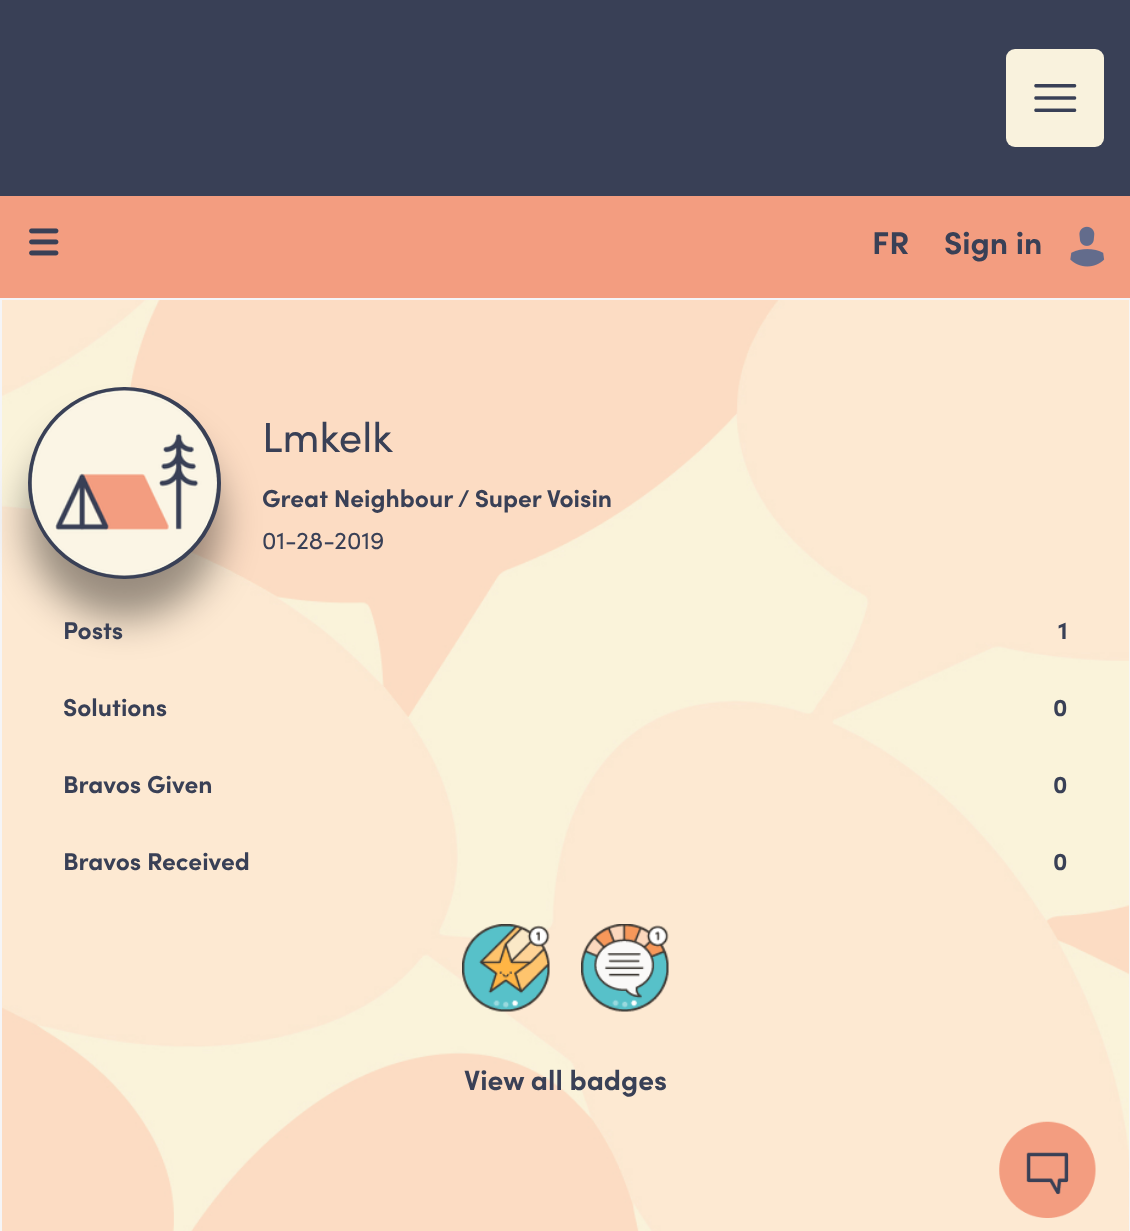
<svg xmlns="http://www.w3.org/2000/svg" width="1130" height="1231">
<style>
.a{font:bold 31.5px Sofia;fill:#394056}
.b{font:42px Sofia;fill:#394056}
.c{font:bold 24.5px Sofia;fill:#394056}
.d{font:24.5px Sofia;fill:#394056}
.e{font:bold 28px Sofia;fill:#394056}
</style>
<defs>
<clipPath id="clip1"><path d="M263 480h350v42H263z"/></clipPath>
</defs>
<rect width="100%" height="100%" fill="#394056"/>
<rect fill="#f9f2dd" x="1006" y="49" width="98" height="98" rx="9"/>
<image href="1.png" x="1034" y="84" width="43" height="28"/>
<path fill="#f39d80" d="M0 196h1130v102H0z"/>
<image href="2.png" x="29" y="228" width="30" height="28"/>
<image href="3.png" x="1070" y="226" width="35" height="41"/>
<image href="4.png" x="2" y="300" width="1127" height="931"/>
<path fill="none" stroke="#f5f5f7" stroke-width="2" d="M1 299h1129v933H1z"/>
<rect fill="#00000066" filter="blur(19px)" x="28" y="425" width="193" height="193" rx="96.5"/>
<rect fill="#5d5d5d" stroke="#394056" stroke-width="4" x="30" y="389" width="189" height="188" rx="94"/>
<image href="5.png" x="31" y="390" width="186" height="186"/>
<image href="6.png" x="462" y="924" width="88" height="88"/>
<image href="7.png" x="581" y="924" width="88" height="88"/>
<image href="8.png" x="999" y="1121" width="97" height="97"/>
<text class="a" x="872" y="254">FR</text>
<text class="a" x="944" y="254">Sign in</text>
<text class="b" x="262" y="452">Lmkelk</text>
<g clip-path="url(#clip1)">
<text class="c" x="262" y="507">Great Neighbour / Super Voisin</text>
</g>
<text class="d" x="262" y="549">01-28-2019</text>
<text class="c" x="63" y="639">Posts</text>
<text class="c" x="1058" y="639">1</text>
<text class="c" x="63" y="716">Solutions</text>
<text class="c" x="1053" y="716">0</text>
<text class="c" x="63" y="793">Bravos Given</text>
<text class="c" x="1053" y="793">0</text>
<text class="c" x="63" y="870">Bravos Received</text>
<text class="c" x="1053" y="870">0</text>
<text class="e" x="464" y="1090">View all badges</text>
</svg>
